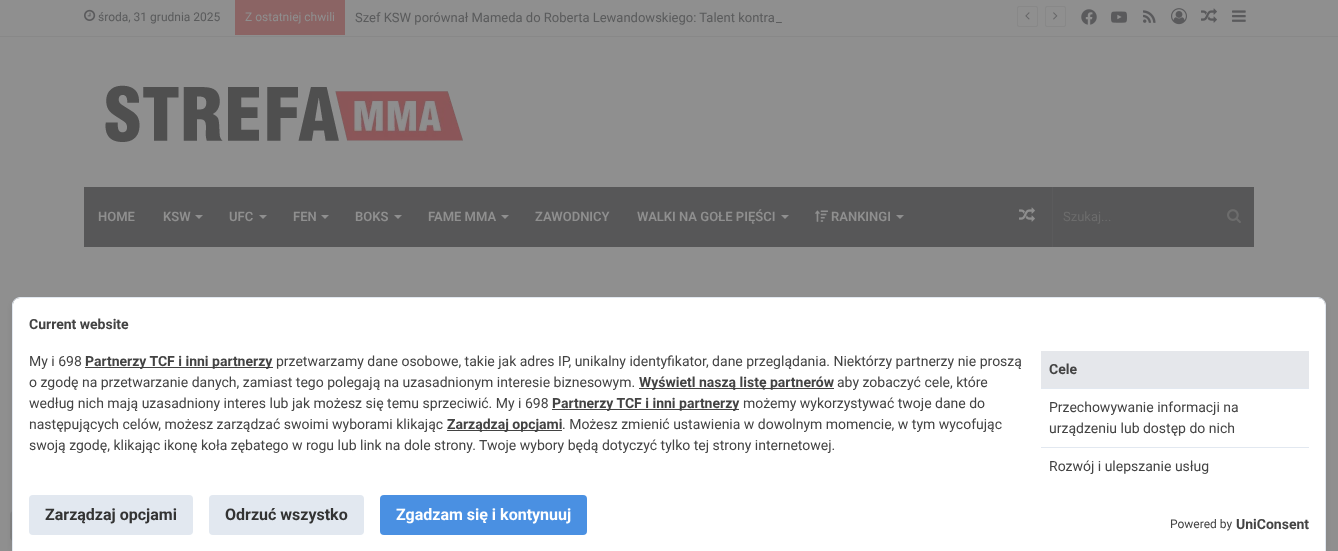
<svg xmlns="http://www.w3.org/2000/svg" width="1338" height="551">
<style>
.a{font:12px Roboto;fill:#5a5b5c}
.b{font:12px Roboto;fill:#8f8f8f}
.c{font:13px Roboto;fill:#5a5b5c}
.d{font:600 13px Roboto;fill:#8f8f8f}
.e{font:13px Roboto;fill:#6c6c6c}
.f{font:bold 14px Roboto;fill:#434343}
.g{font:14px Roboto;fill:#434343}
.h{font:bold 16px Roboto;fill:#333}
.i{font:bold 16px Roboto;fill:#fff}
.j{font:12px Roboto;fill:#434343}
</style>
<defs>
<linearGradient id="g1" gradientUnits="userSpaceOnUse" x1="12" y1="543" x2="38" y2="509"><stop offset="0" stop-color="#818181"/><stop offset="1" stop-color="#878787"/></linearGradient>
</defs>
<rect width="100%" height="100%" fill="#8f8f8f"/>
<path fill="#888" d="M0 36h1338v1H0z"/>
<image href="1.png" x="84" y="9" width="12" height="12"/>
<path fill="#8b6464" d="M235 0h110v35H235z"/>
<rect fill="none" stroke="#888" x="1017.5" y="6.5" width="20" height="20" rx="1.5"/>
<image href="2.png" x="1025" y="12" width="5" height="8"/>
<rect fill="none" stroke="#888" x="1045.5" y="6.5" width="20" height="20" rx="1.5"/>
<image href="3.png" x="1053" y="12" width="5" height="8"/>
<image href="4.png" x="1081" y="9" width="16" height="16"/>
<image href="5.png" x="1111" y="11" width="16" height="12"/>
<image href="6.png" x="1143" y="10" width="13" height="13"/>
<image href="7.png" x="1171" y="8" width="16" height="17"/>
<image href="8.png" x="1201" y="8" width="16" height="15"/>
<image href="9.png" x="1232" y="10" width="14" height="12"/>
<image href="10.png" x="105" y="85" width="358" height="57"/>
<path fill="#575758" d="M84 187h1170v60H84z"/>
<path fill="#8f8f8f" d="M195 215h8l-4 4z"/>
<path fill="#8f8f8f" d="M259 215h8l-4 4z"/>
<path fill="#8f8f8f" d="M321 215h8l-4 4z"/>
<path fill="#8f8f8f" d="M394 215h8l-4 4z"/>
<path fill="#8f8f8f" d="M501 215h8l-4 4z"/>
<path fill="#8f8f8f" d="M781 215h8l-4 4z"/>
<image href="11.png" x="815" y="210" width="13" height="12"/>
<path fill="#8f8f8f" d="M896 215h8l-4 4z"/>
<image href="12.png" x="1019" y="207" width="16" height="15"/>
<path fill="#5b5b5c" d="M1052 187h1v60H1052z"/>
<image href="13.png" x="1227" y="209" width="14" height="14"/>
<rect fill="url(#g1)" x="10" y="511" width="30" height="30" rx="4"/>
<rect fill="#0000001a" filter="blur(3px)" x="13" y="302" width="1312" height="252" rx="7"/>
<path fill="#fff" d="M20 298h1298c4 0 7 3 7 7v246h-1312v-246c0-4 3-7 7-7z"/>
<path fill="#e2e8f0" fill-rule="evenodd" d="M20 297h1298c4 0 8 4 8 8v246h-1314v-246c0-4 4-8 8-8zm0 1h1298c4 0 7 3 7 7v246h-1312v-246c0-4 3-7 7-7z"/>
<path fill="#434343" d="M85 367h188v1H85z"/>
<path fill="#434343" d="M639 388h195v1H639z"/>
<path fill="#434343" d="M552 409h187v1H552z"/>
<path fill="#434343" d="M447 430h115v1H447z"/>
<path fill="#e5e7eb" d="M1041 351h268v37H1041z"/>
<path fill="#e2e8f0" d="M1041 388h268v1H1041z"/>
<path fill="#e2e8f0" d="M1041 447h268v1H1041z"/>
<rect fill="#e2e8f0" x="29" y="495" width="164" height="40" rx="4"/>
<rect fill="#e2e8f0" x="209" y="495" width="155" height="40" rx="4"/>
<rect fill="#4a90e2" x="380" y="495" width="207" height="40" rx="4"/>
<text class="a" x="98" y="21">środa, 31 grudnia 2025</text>
<text class="b" x="245" y="21">Z ostatniej chwili</text>
<text class="c" x="355" y="22">Szef KSW porównał Mameda do Roberta Lewandowskiego: Talent kontra</text>
<text class="c" x="776" y="22">_</text>
<text class="d" x="98" y="221">HOME</text>
<text class="d" x="163" y="221">KSW</text>
<text class="d" x="229" y="221">UFC</text>
<text class="d" x="293" y="221">FEN</text>
<text class="d" x="355" y="221">BOKS</text>
<text class="d" x="428" y="221">FAME MMA</text>
<text class="d" x="535" y="221">ZAWODNICY</text>
<text class="d" x="637" y="221">WALKI NA GOŁE PIĘŚCI</text>
<text class="d" x="831" y="221">RANKINGI</text>
<text class="e" x="1063" y="221">Szukaj...</text>
<text class="f" x="29" y="329">Current website</text>
<text class="g" x="29" y="366">My i 698</text>
<text class="f" x="85" y="366">Partnerzy TCF i inni partnerzy</text>
<text class="g" x="276" y="366">przetwarzamy dane osobowe, takie jak adres IP, unikalny identyfikator, dane przeglądania. Niektórzy partnerzy nie proszą</text>
<text class="g" x="29" y="387">o zgodę na przetwarzanie danych, zamiast tego polegają na uzasadnionym interesie biznesowym.</text>
<text class="f" x="639" y="387">Wyświetl naszą listę partnerów</text>
<text class="g" x="837" y="387">aby zobaczyć cele, które</text>
<text class="g" x="29" y="408">według nich mają uzasadniony interes lub jak możesz się temu sprzeciwić. My i 698</text>
<text class="f" x="552" y="408">Partnerzy TCF i inni partnerzy</text>
<text class="g" x="743" y="408">możemy wykorzystywać twoje dane do</text>
<text class="g" x="29" y="429">następujących celów, możesz zarządzać swoimi wyborami klikając</text>
<text class="f" x="447" y="429">Zarządzaj opcjami</text>
<text class="g" x="562" y="429">. Możesz zmienić ustawienia w dowolnym momencie, w tym wycofując</text>
<text class="g" x="29" y="450">swoją zgodę, klikając ikonę koła zębatego w rogu lub link na dole strony. Twoje wybory będą dotyczyć tylko tej strony internetowej.</text>
<text class="f" x="1049" y="374">Cele</text>
<text class="g" x="1049" y="412">Przechowywanie informacji na</text>
<text class="g" x="1049" y="433">urządzeniu lub dostęp do nich</text>
<text class="g" x="1049" y="471">Rozwój i ulepszanie usług</text>
<text class="h" x="45" y="520">Zarządzaj opcjami</text>
<text class="h" x="225" y="520">Odrzuć wszystko</text>
<text class="i" x="396" y="520">Zgadzam się i kontynuuj</text>
<text class="j" x="1170" y="528">Powered by</text>
<text class="f" x="1236" y="529">UniConsent</text>
</svg>
